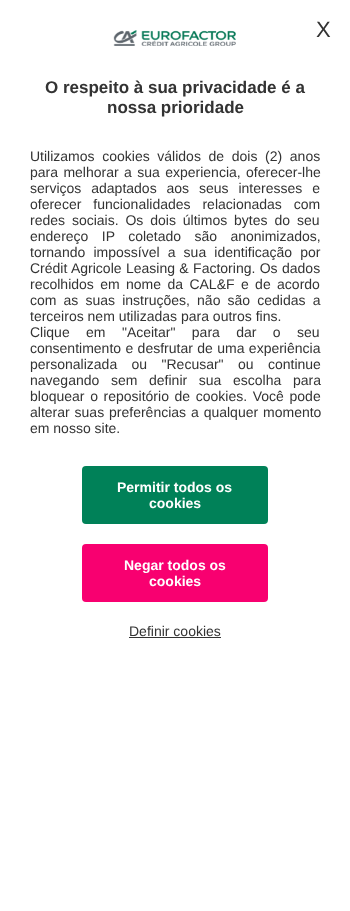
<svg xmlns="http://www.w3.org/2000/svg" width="350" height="911">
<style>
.a{font:22px Liberation Sans;fill:#333}
.b{font:bold 17px Liberation Sans;fill:#333}
.c{font:14px Liberation Sans;fill:#333}
.d{font:bold 14px Liberation Sans;fill:#fff}
</style>
<rect width="100%" height="100%" fill="#fff"/>
<image href="1.png" x="113" y="30" width="123" height="16"/>
<rect fill="#008158" x="82" y="466" width="186" height="58" rx="4"/>
<rect fill="#f80070" x="82" y="544" width="186" height="58" rx="4"/>
<path fill="#333" d="M129 637h92v1H129z"/>
<text class="a" x="316" y="37">X</text>
<text class="b" x="45" y="93">O respeito à sua privacidade é a</text>
<text class="b" x="107" y="113">nossa prioridade</text>
<text class="c" x="30" y="161" word-spacing="3.75">Utilizamos cookies válidos de dois (2) anos</text>
<text class="c" x="30" y="177" word-spacing="1.5">para melhorar a sua experiencia, oferecer-lhe</text>
<text class="c" x="30" y="193" word-spacing="6">serviços adaptados aos seus interesses e</text>
<text class="c" x="30" y="209" word-spacing="8">oferecer funcionalidades relacionadas com</text>
<text class="c" x="30" y="225" word-spacing="3">redes sociais. Os dois últimos bytes do seu</text>
<text class="c" x="30" y="241" word-spacing="9.5">endereço IP coletado são anonimizados,</text>
<text class="c" x="30" y="257" word-spacing="4.25">tornando impossível a sua identificação por</text>
<text class="c" x="30" y="273" word-spacing="0.5">Crédit Agricole Leasing &amp; Factoring. Os dados</text>
<text class="c" x="30" y="289" word-spacing="2.5">recolhidos em nome da CAL&amp;F e de acordo</text>
<text class="c" x="30" y="305" word-spacing="3.25">com as suas instruções, não são cedidas a</text>
<text class="c" x="30" y="321">terceiros nem utilizadas para outros fins.</text>
<text class="c" x="30" y="337" word-spacing="12.5">Clique em "Aceitar" para dar o seu</text>
<text class="c" x="30" y="353" word-spacing="0.5">consentimento e desfrutar de uma experiência</text>
<text class="c" x="30" y="369" word-spacing="10.5">personalizada ou "Recusar" ou continue</text>
<text class="c" x="30" y="385" word-spacing="7.75">navegando sem definir sua escolha para</text>
<text class="c" x="30" y="401" word-spacing="1.75">bloquear o repositório de cookies. Você pode</text>
<text class="c" x="30" y="417" word-spacing="1">alterar suas preferências a qualquer momento</text>
<text class="c" x="30" y="433">em nosso site.</text>
<text class="d" x="117" y="492">Permitir todos os</text>
<text class="d" x="149" y="508">cookies</text>
<text class="d" x="124" y="570">Negar todos os</text>
<text class="d" x="149" y="586">cookies</text>
<text class="c" x="129" y="636">Definir cookies</text>
</svg>
